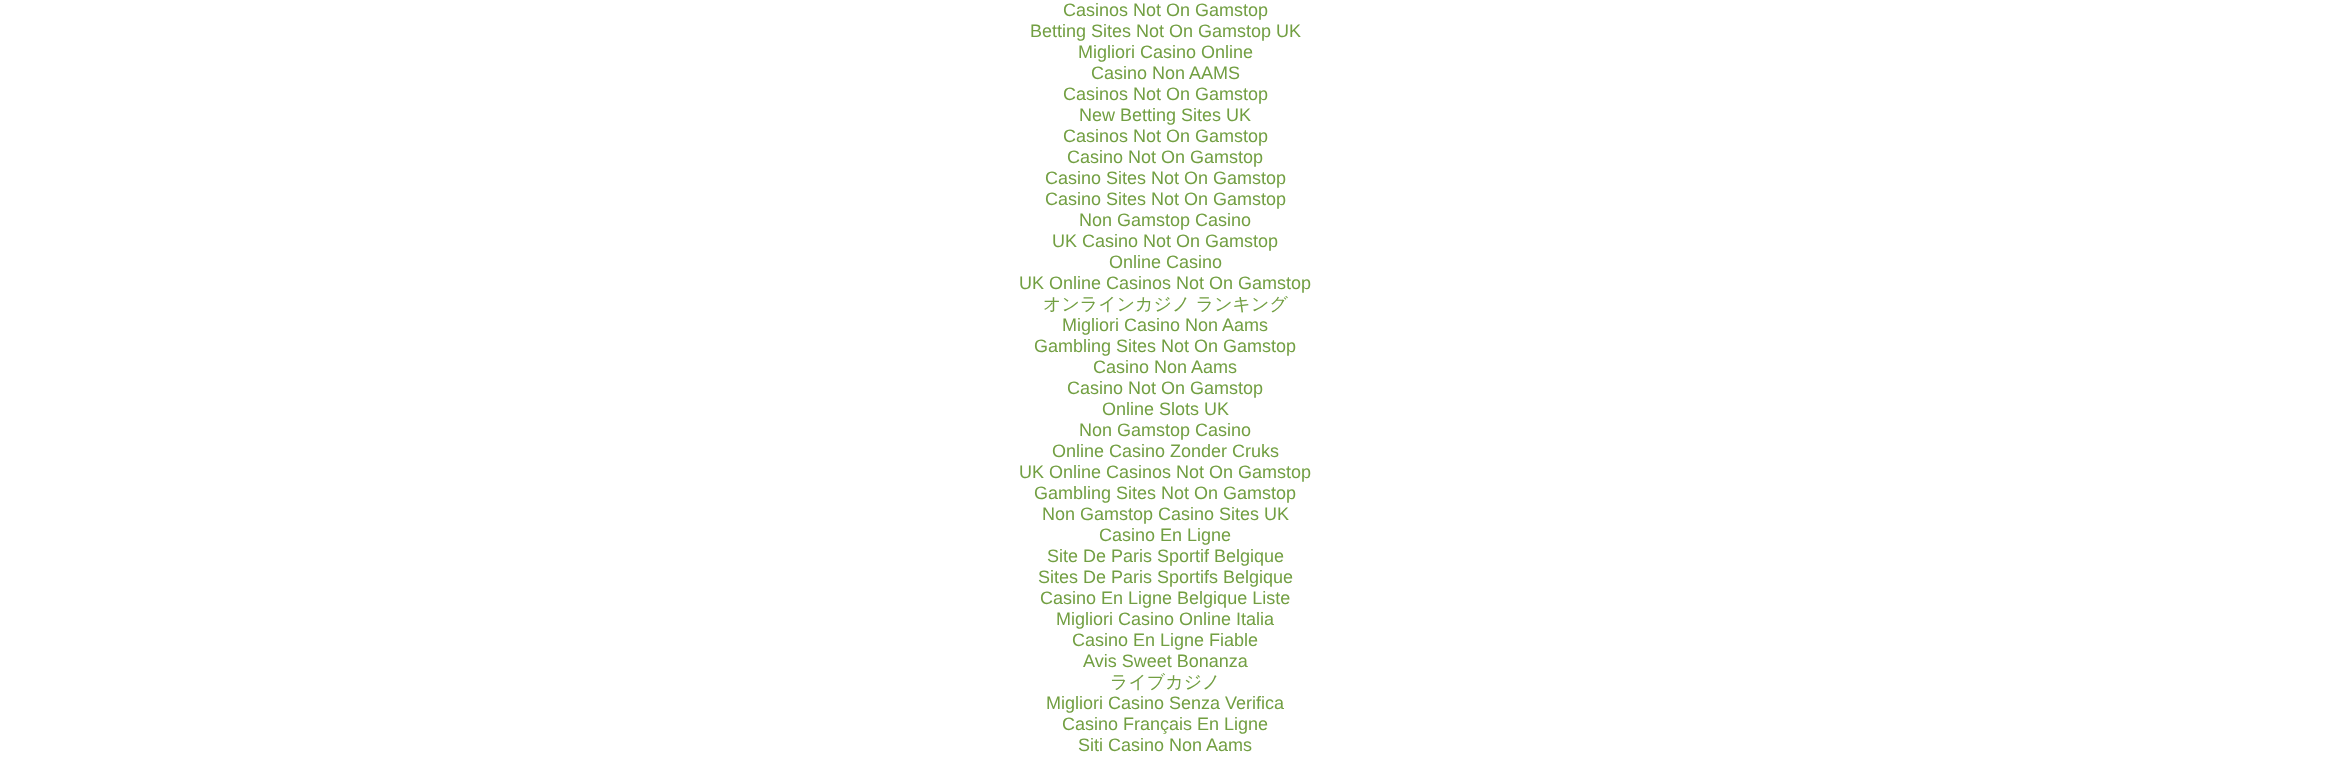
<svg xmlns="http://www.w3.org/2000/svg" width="2330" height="761">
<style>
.a{font:18px Liberation Sans;fill:#729f42}
.b{font:500 18px WenQuanYi Zen Hei;fill:#729f42}
</style>
<rect width="100%" height="100%" fill="#fff"/>
<text class="a" x="1063" y="16">Casinos Not On Gamstop</text>
<text class="a" x="1030" y="37">Betting Sites Not On Gamstop UK</text>
<text class="a" x="1078" y="58">Migliori Casino Online</text>
<text class="a" x="1091" y="79">Casino Non AAMS</text>
<text class="a" x="1063" y="100">Casinos Not On Gamstop</text>
<text class="a" x="1079" y="121">New Betting Sites UK</text>
<text class="a" x="1063" y="142">Casinos Not On Gamstop</text>
<text class="a" x="1067" y="163">Casino Not On Gamstop</text>
<text class="a" x="1045" y="184">Casino Sites Not On Gamstop</text>
<text class="a" x="1045" y="205">Casino Sites Not On Gamstop</text>
<text class="a" x="1079" y="226">Non Gamstop Casino</text>
<text class="a" x="1052" y="247">UK Casino Not On Gamstop</text>
<text class="a" x="1109" y="268">Online Casino</text>
<text class="a" x="1019" y="289">UK Online Casinos Not On Gamstop</text>
<text class="b" x="1043" y="310">オンラインカジノ ランキング</text>
<text class="a" x="1062" y="331">Migliori Casino Non Aams</text>
<text class="a" x="1034" y="352">Gambling Sites Not On Gamstop</text>
<text class="a" x="1093" y="373">Casino Non Aams</text>
<text class="a" x="1067" y="394">Casino Not On Gamstop</text>
<text class="a" x="1102" y="415">Online Slots UK</text>
<text class="a" x="1079" y="436">Non Gamstop Casino</text>
<text class="a" x="1052" y="457">Online Casino Zonder Cruks</text>
<text class="a" x="1019" y="478">UK Online Casinos Not On Gamstop</text>
<text class="a" x="1034" y="499">Gambling Sites Not On Gamstop</text>
<text class="a" x="1042" y="520">Non Gamstop Casino Sites UK</text>
<text class="a" x="1099" y="541">Casino En Ligne</text>
<text class="a" x="1047" y="562">Site De Paris Sportif Belgique</text>
<text class="a" x="1038" y="583">Sites De Paris Sportifs Belgique</text>
<text class="a" x="1040" y="604">Casino En Ligne Belgique Liste</text>
<text class="a" x="1056" y="625">Migliori Casino Online Italia</text>
<text class="a" x="1072" y="646">Casino En Ligne Fiable</text>
<text class="a" x="1083" y="667">Avis Sweet Bonanza</text>
<text class="b" x="1110" y="688">ライブカジノ</text>
<text class="a" x="1046" y="709">Migliori Casino Senza Verifica</text>
<text class="a" x="1062" y="730">Casino Français En Ligne</text>
<text class="a" x="1078" y="751">Siti Casino Non Aams</text>
</svg>
